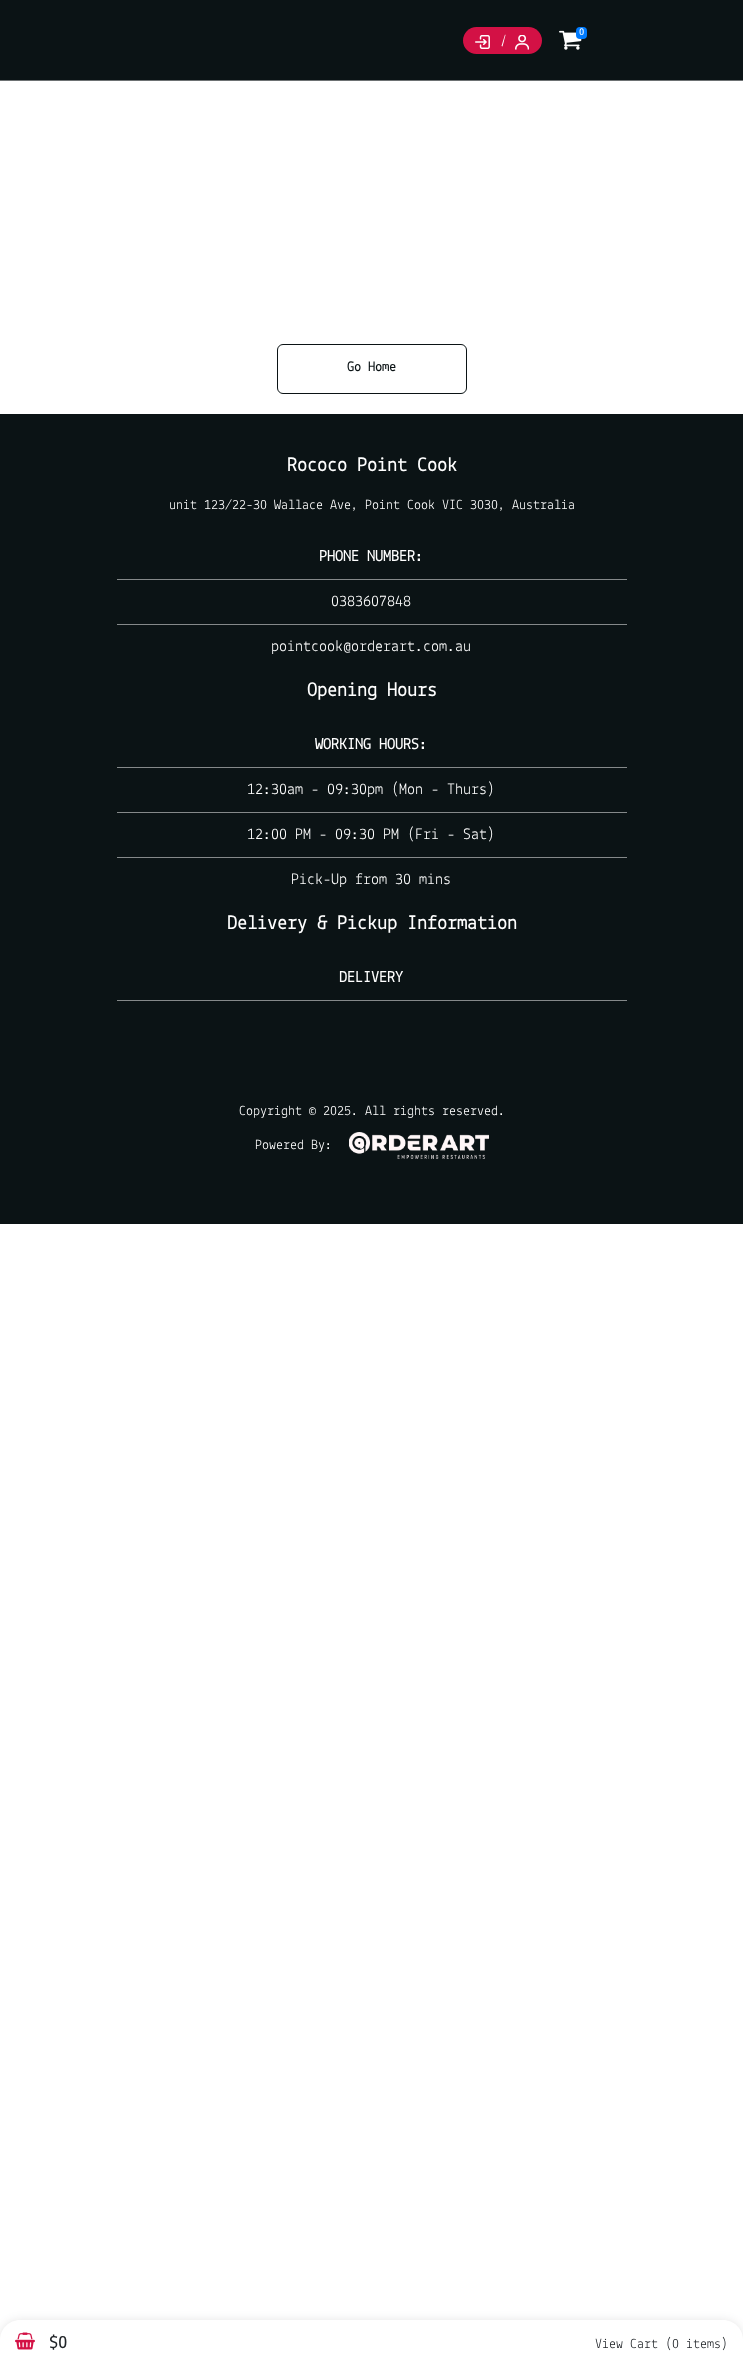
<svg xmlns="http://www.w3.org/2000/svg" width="743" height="2368">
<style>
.a{font:bold 10px Lekton;fill:#fff}
.b{font:bold 14px Lekton;fill:#0b1315}
.c{font:bold 20px Lekton;fill:#fff}
.d{font:14px Lekton;fill:#fff}
.e{font:bold 16px Lekton;fill:#fff}
.f{font:16px Lekton;fill:#fff}
.g{font:bold 18px Lekton;fill:#212529}
.h{font:14px Lekton;fill:#212529}
</style>
<rect width="100%" height="100%" fill="#fff"/>
<path fill="#0b1315" d="M0 0h743v80H0z"/>
<path fill="#6d7173" d="M0 80h743v1H0z"/>
<rect fill="#d31145" x="463" y="27" width="79" height="27" rx="13.5"/>
<image href="1.png" x="475" y="35" width="15" height="14"/>
<path fill="#fff" d="M505 34.5l.5 .5l-3 11.5l-1-.5z"/>
<image href="2.png" x="515" y="35" width="14" height="15"/>
<image href="3.png" x="559" y="30" width="23" height="20"/>
<rect fill="#007bff" x="576" y="27" width="11" height="12" rx="4"/>
<rect fill="none" stroke="#0b1315" x="277.5" y="344.5" width="189" height="49" rx="5.5"/>
<path fill="#0b1315" d="M0 414h743v810H0z"/>
<path fill="#85898a" d="M117 579h510v1H117z"/>
<path fill="#85898a" d="M117 624h510v1H117z"/>
<path fill="#85898a" d="M117 767h510v1H117z"/>
<path fill="#85898a" d="M117 812h510v1H117z"/>
<path fill="#85898a" d="M117 857h510v1H117z"/>
<path fill="#85898a" d="M117 1000h510v1H117z"/>
<image href="4.png" x="349" y="1132" width="140" height="27"/>
<rect fill="#0000001a" filter="blur(5px)" y="2320" width="743" height="48" rx="20"/>
<path fill="#fff" d="M20 2320h703c11 0 20 9 20 20v28h-743v-28c0-11 9-20 20-20z"/>
<image href="5.png" x="15" y="2332" width="20" height="18"/>
<text class="a" x="579" y="35">0</text>
<text class="b" x="347" y="371">Go Home</text>
<text class="c" x="287" y="471">Rococo Point Cook</text>
<text class="d" x="169" y="509">unit 123/22-30 Wallace Ave, Point Cook VIC 3030, Australia</text>
<text class="e" x="319" y="561">PHONE NUMBER:</text>
<text class="f" x="331" y="606">0383607848</text>
<text class="f" x="271" y="651">pointcook@orderart.com.au</text>
<text class="c" x="307" y="696">Opening Hours</text>
<text class="e" x="315" y="749">WORKING HOURS:</text>
<text class="f" x="247" y="794">12:30am - 09:30pm (Mon - Thurs)</text>
<text class="f" x="247" y="839">12:00 PM - 09:30 PM (Fri - Sat)</text>
<text class="f" x="291" y="884">Pick-Up from 30 mins</text>
<text class="c" x="227" y="929">Delivery &amp; Pickup Information</text>
<text class="e" x="339" y="982">DELIVERY</text>
<text class="d" x="239" y="1115">Copyright © 2025. All rights reserved.</text>
<text class="d" x="255" y="1149">Powered By:</text>
<text class="g" x="49" y="2348">$0</text>
<text class="h" x="595" y="2348">View Cart (0 items)</text>
</svg>
